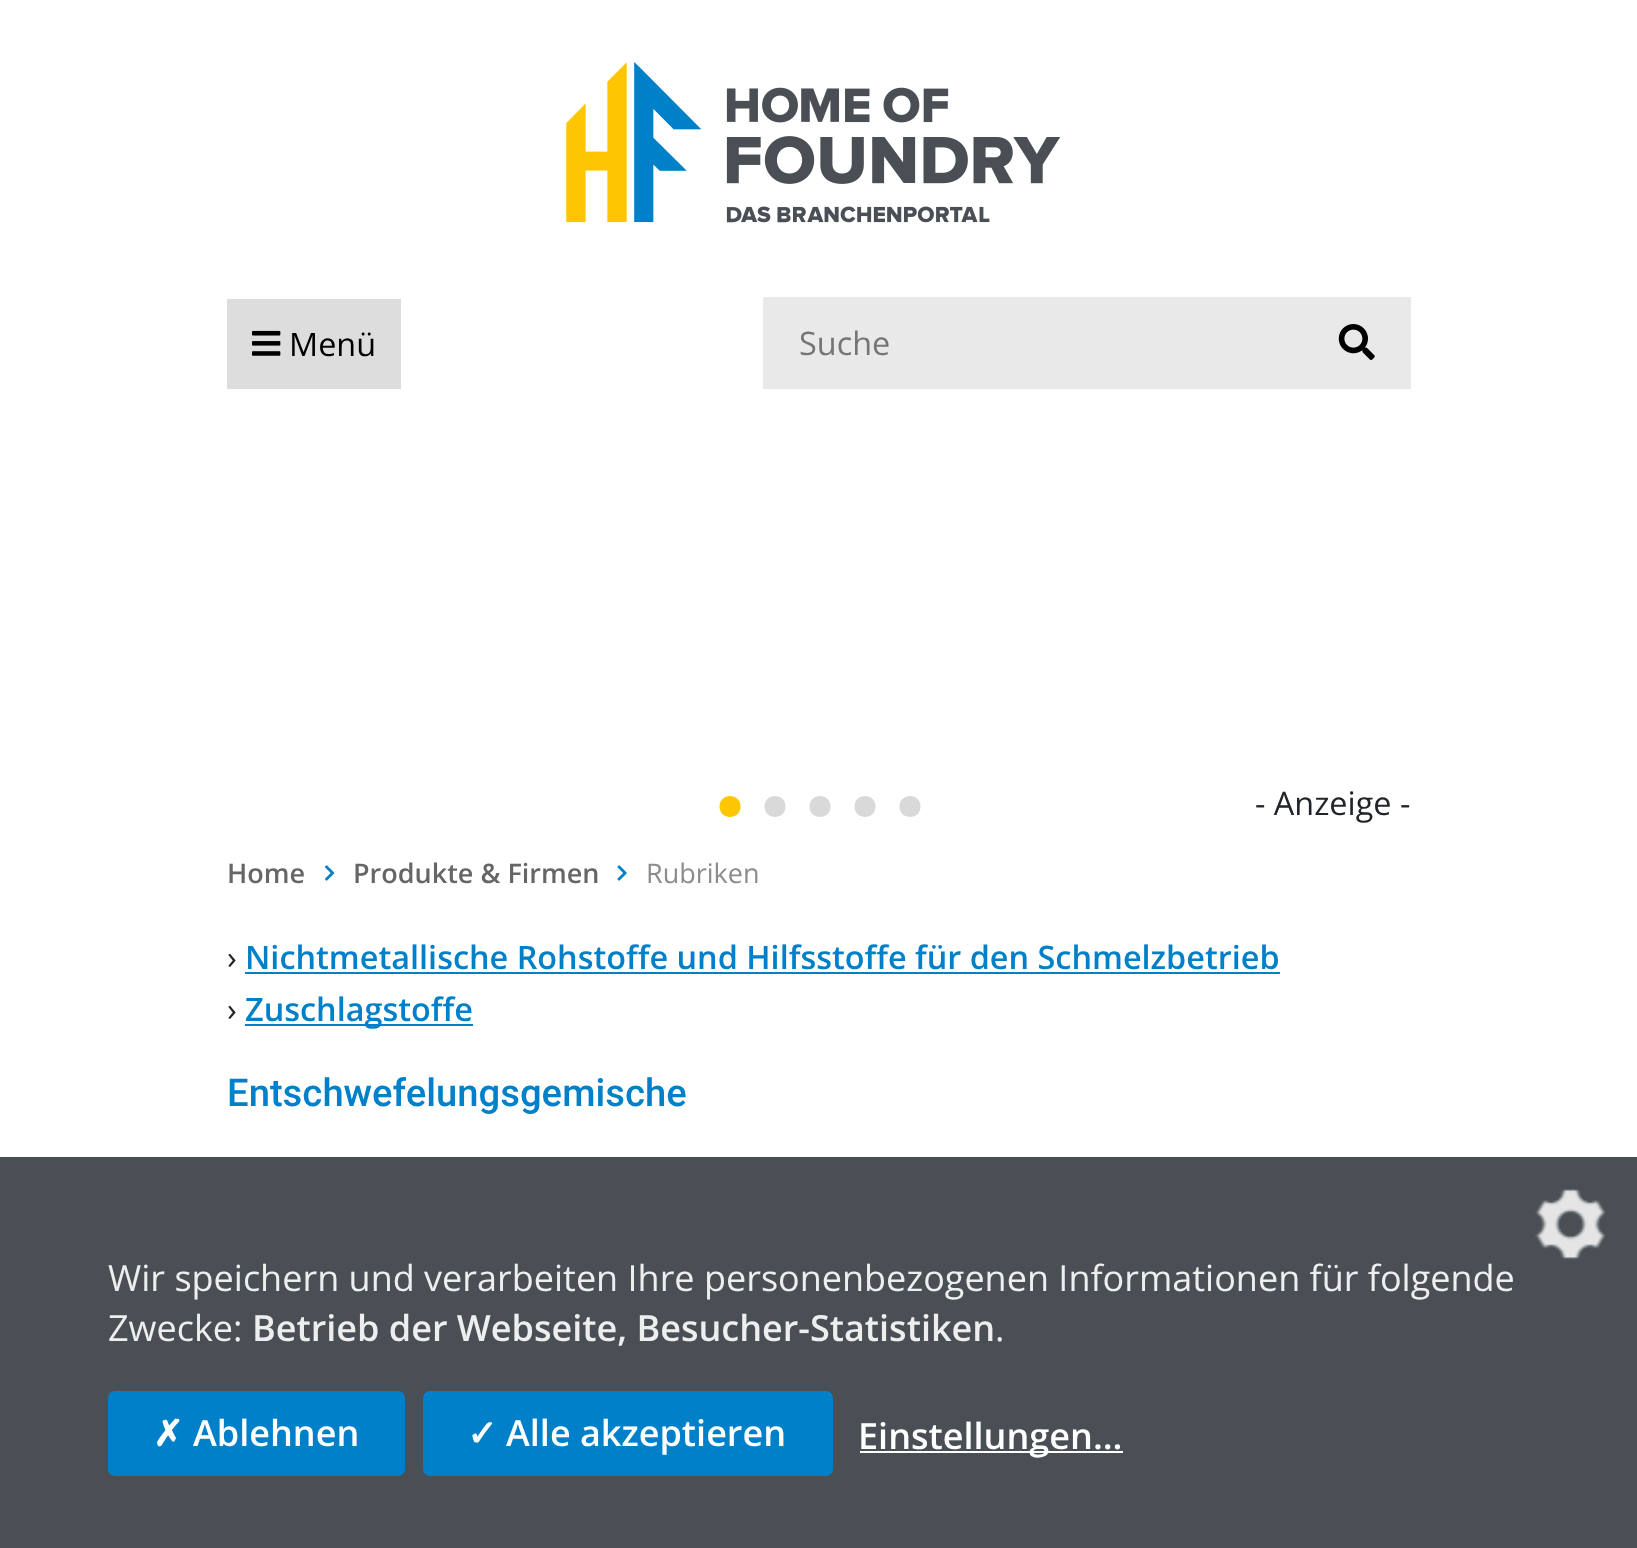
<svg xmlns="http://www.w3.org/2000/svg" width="1637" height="1548">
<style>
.a{font:32.4px Open Sans;fill:#000}
.b{font:32.4px Open Sans;fill:#757575}
.c{font:32.4px Open Sans;fill:#212529}
.d{font:600 27px Open Sans;fill:#666}
.e{font:27px Open Sans;fill:#8c8c8c}
.f{font:600 32.4px Open Sans;fill:#0080c8}
.g{font:500 38.25px Roboto;fill:#0080c8}
.h{font:36px Open Sans;fill:#eee}
.i{font:600 36px Open Sans;fill:#eee}
.j{font:bold 36px DejaVu Sans;fill:#fff}
.k{font:600 36px Open Sans;fill:#fff}
</style>
<rect width="100%" height="100%" fill="#fff"/>
<image href="1.png" x="566" y="62" width="495" height="161"/>
<path fill="#ddd" d="M227 299h174v90H227z"/>
<image href="2.png" x="252" y="330" width="29" height="26"/>
<path fill="#e9e9e9" d="M763 297h648v92H763z"/>
<image href="3.png" x="1338" y="324" width="37" height="36"/>
<path fill="#fdc600" d="M740.5 806.5c0-14-21-14-21 0c0 14 21 14 21 0z"/>
<path fill="#d9d9d9" d="M785.5 806.5c0-14-21-14-21 0c0 14 21 14 21 0z"/>
<path fill="#d9d9d9" d="M830.5 806.5c0-14-21-14-21 0c0 14 21 14 21 0z"/>
<path fill="#d9d9d9" d="M875.5 806.5c0-14-21-14-21 0c0 14 21 14 21 0z"/>
<path fill="#d9d9d9" d="M920.5 806.5c0-14-21-14-21 0c0 14 21 14 21 0z"/>
<image href="4.png" x="325" y="865" width="10" height="16"/>
<image href="5.png" x="617" y="865" width="10" height="16"/>
<path fill="#0080c8" d="M245 972h1035v2H245z"/>
<path fill="#0080c8" d="M245 1024h228v2H245z"/>
<path fill="#4a4f55" d="M0 1157h1637v391H0z"/>
<image href="6.png" x="1535" y="1189" width="71" height="71"/>
<rect fill="#0080c8" x="108" y="1391" width="297" height="85" rx="7"/>
<rect fill="#0080c8" x="423" y="1391" width="410" height="85" rx="7"/>
<path fill="#fff" d="M860 1451h263v2H860z"/>
<text class="a" x="289" y="356">Menü</text>
<text class="b" x="799" y="355">Suche</text>
<text class="c" x="1255" y="815">- Anzeige -</text>
<text class="d" x="227" y="883">Home</text>
<text class="d" x="353" y="883">Produkte &amp; Firmen</text>
<text class="e" x="646" y="883">Rubriken</text>
<text class="c" x="227" y="969">›</text>
<text class="f" x="245" y="969">Nichtmetallische Rohstoffe und Hilfsstoffe für den Schmelzbetrieb</text>
<text class="c" x="227" y="1021">›</text>
<text class="f" x="245" y="1021">Zuschlagstoffe</text>
<text class="g" x="227" y="1106">Entschwefelungsgemische</text>
<text class="h" x="108" y="1291">Wir speichern und verarbeiten Ihre personenbezogenen Informationen für folgende</text>
<text class="h" x="108" y="1341">Zwecke:</text>
<text class="i" x="252" y="1341">Betrieb der Webseite, Besucher-Statistiken</text>
<text class="h" x="995" y="1341">.</text>
<text class="j" x="153" y="1446">✗</text>
<text class="k" x="193" y="1446">Ablehnen</text>
<text class="j" x="467" y="1446">✓</text>
<text class="k" x="506" y="1446">Alle akzeptieren</text>
<text class="k" x="858" y="1449">Einstellungen...</text>
</svg>
